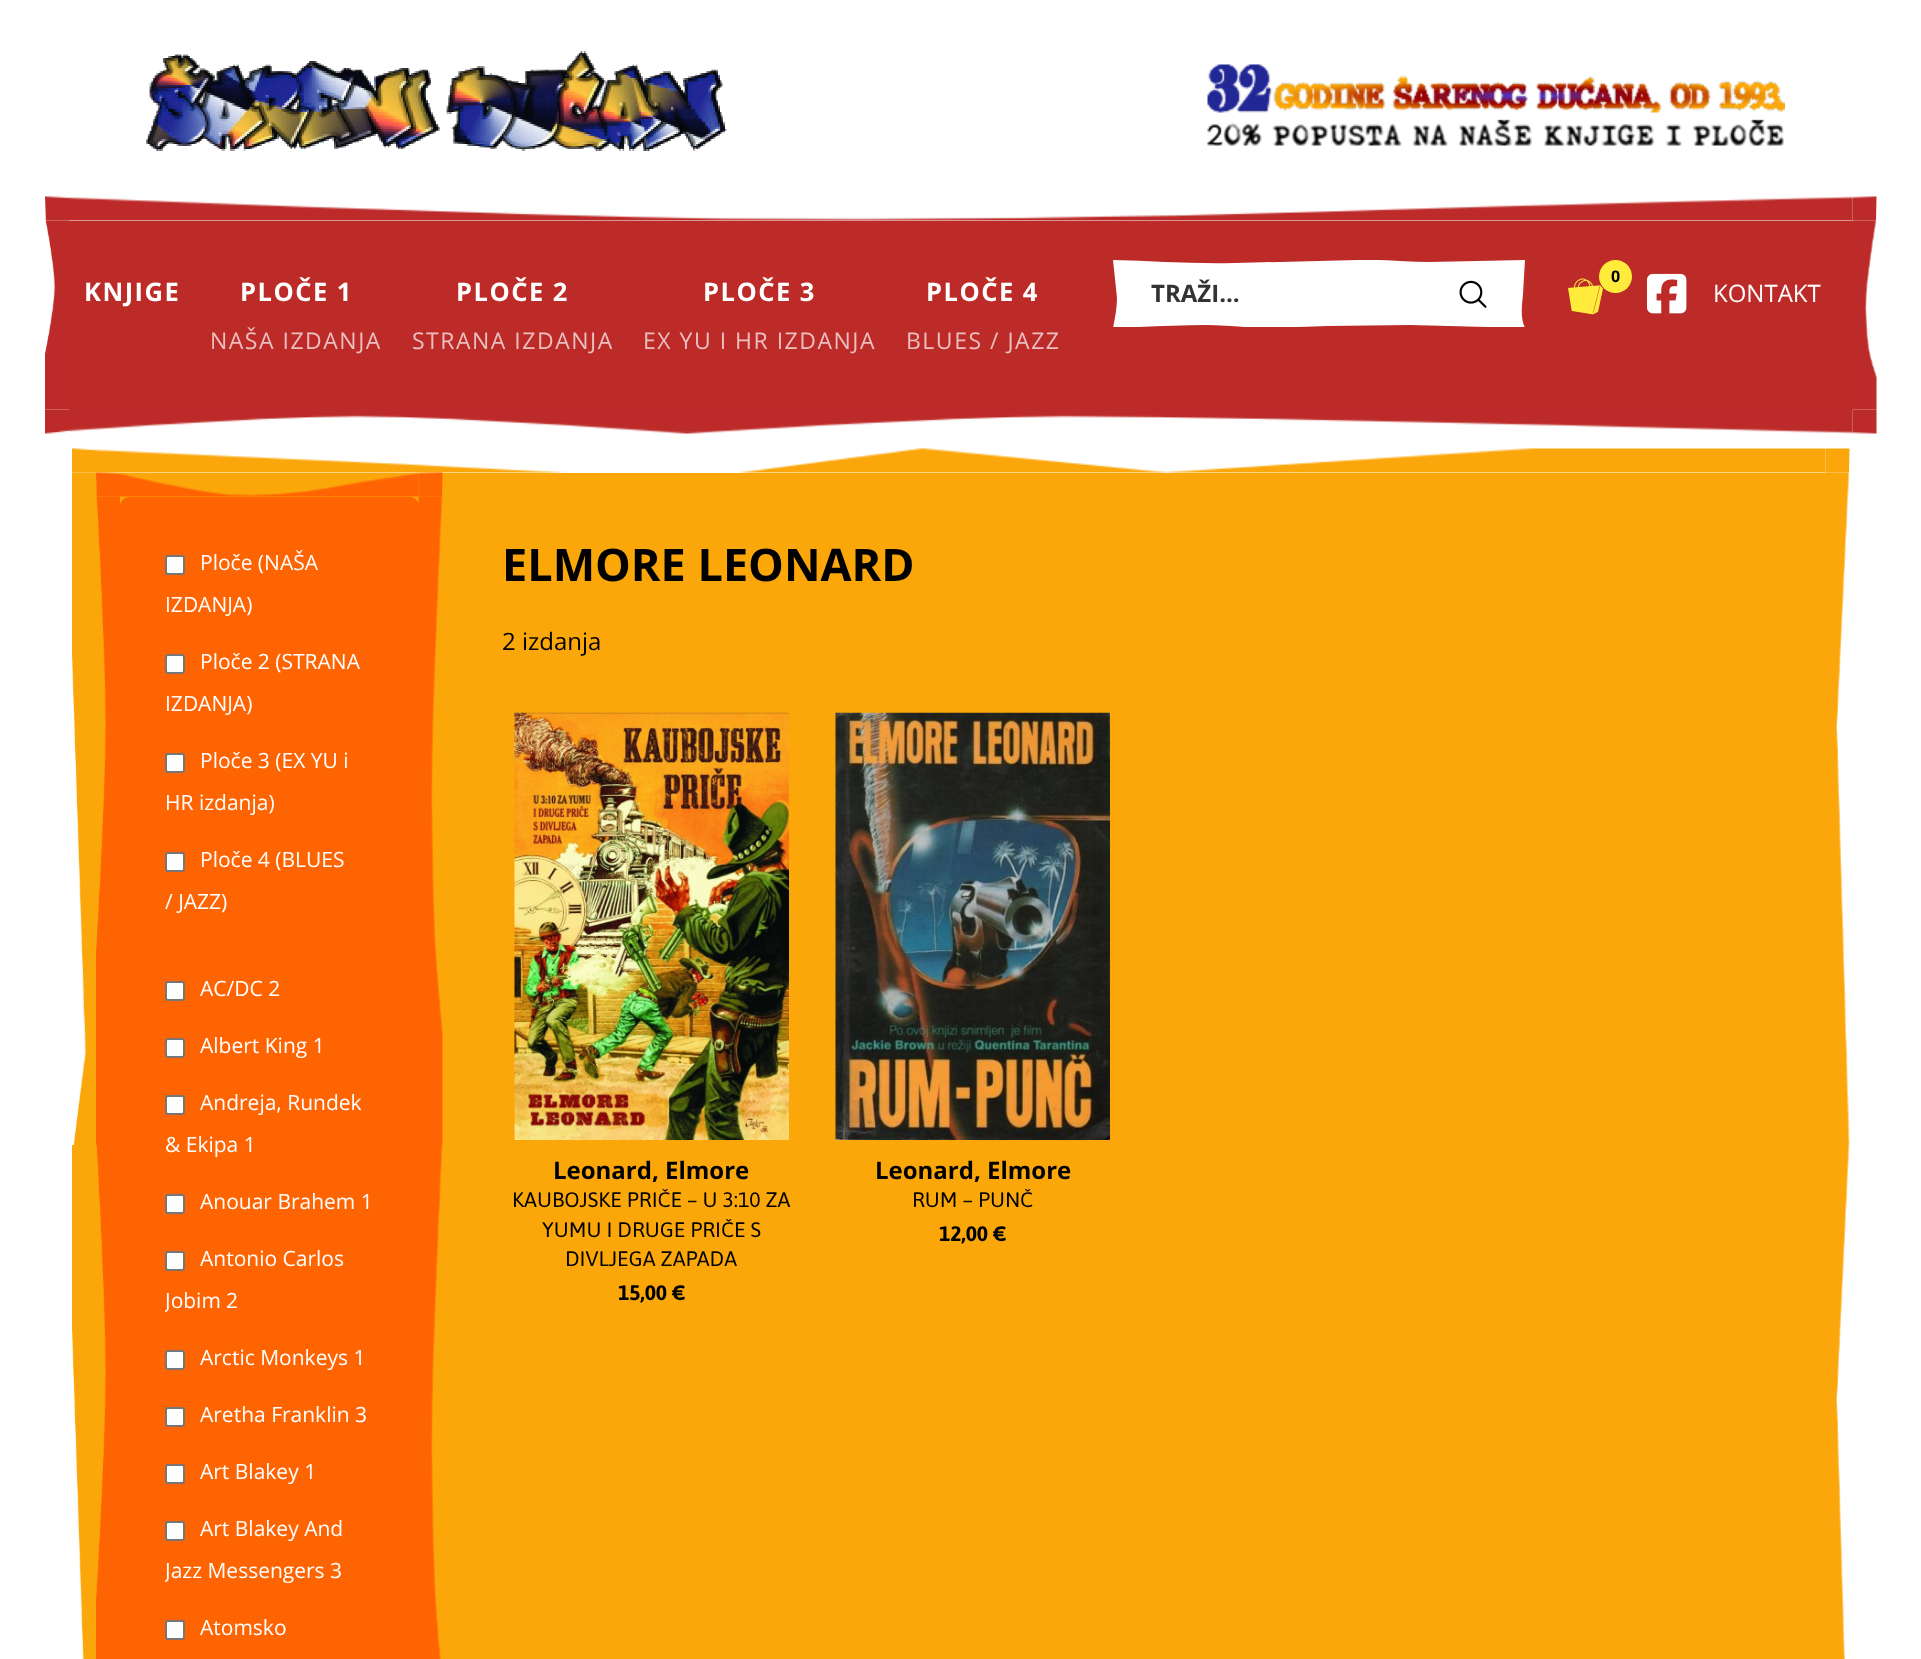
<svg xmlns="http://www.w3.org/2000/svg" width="1921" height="1659">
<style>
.a{font:bold 25.5px Open Sans;letter-spacing:1.5px;fill:#fff}
.b{font:23px Open Sans;letter-spacing:1.5px;fill:#ebbfbf}
.c{font:bold 24px Open Sans;fill:#333}
.d{font:bold 16px Open Sans;fill:#000}
.e{font:24px Open Sans;fill:#fff}
.f{font:21px Open Sans;fill:#fff}
.g{font:bold 45px Open Sans;fill:#000}
.h{font:24px Open Sans;fill:#000}
.i{font:bold 24px Open Sans;fill:#000}
.j{font:21px Asap;fill:#000}
.k{font:bold 21px Asap;fill:#000}
</style>
<defs>
<clipPath id="clip1"><path d="M1113 260h413v67H1113z"/></clipPath>
<clipPath id="clip2"><path d="M165 968h209v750H165z"/></clipPath>
</defs>
<rect width="100%" height="100%" fill="#fff"/>
<image href="1.png" x="146" y="51" width="581" height="100"/>
<image href="2.png" x="1207" y="64" width="578" height="82"/>
<image href="3.png" x="45" y="196" width="1832" height="238"/>
<path fill="#bc2b28" d="M69 221h1784v189H69z"/>
<g clip-path="url(#clip1)">
<path fill="#fff" fill-rule="evenodd" d="M1113 260c40 1 80 4 121 3l124-3c23-1 47 2 71 2l96-2l-2 34c-1 12-3 23 2 34l-115-3l-82 1l-59 2c-21 0-42-3-63-3c-31 0-62 2-93 3c2-10 4-20 4-30z"/>
</g>
<image href="4.png" x="1459" y="280" width="28" height="28"/>
<image href="5.png" x="1568" y="278" width="35" height="37"/>
<circle fill="#ffeb3b" cx="1615.5" cy="276.5" r="16.5"/>
<image href="6.png" x="1647" y="273" width="40" height="41"/>
<image href="7.png" x="72" y="448" width="1778" height="1211"/>
<path fill="#fba70a" d="M96 473h1730v1186H96z"/>
<image href="8.png" x="96" y="472" width="347" height="1187"/>
<rect fill="#ff6402" x="120" y="497" width="299" height="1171" rx="9"/>
<rect fill="#fff" stroke="#767676" stroke-width="2" x="166" y="556" width="18" height="18" rx="2"/>
<rect fill="#fff" stroke="#767676" stroke-width="2" x="166" y="655" width="18" height="18" rx="2"/>
<rect fill="#fff" stroke="#767676" stroke-width="2" x="166" y="754" width="18" height="18" rx="2"/>
<rect fill="#fff" stroke="#767676" stroke-width="2" x="166" y="853" width="18" height="18" rx="2"/>
<rect fill="#fff" stroke="#767676" stroke-width="2" x="166" y="982" width="18" height="18" rx="2"/>
<rect fill="#fff" stroke="#767676" stroke-width="2" x="166" y="1039" width="18" height="18" rx="2"/>
<rect fill="#fff" stroke="#767676" stroke-width="2" x="166" y="1096" width="18" height="18" rx="2"/>
<rect fill="#fff" stroke="#767676" stroke-width="2" x="166" y="1195" width="18" height="18" rx="2"/>
<rect fill="#fff" stroke="#767676" stroke-width="2" x="166" y="1252" width="18" height="18" rx="2"/>
<rect fill="#fff" stroke="#767676" stroke-width="2" x="166" y="1351" width="18" height="18" rx="2"/>
<rect fill="#fff" stroke="#767676" stroke-width="2" x="166" y="1408" width="18" height="18" rx="2"/>
<rect fill="#fff" stroke="#767676" stroke-width="2" x="166" y="1465" width="18" height="18" rx="2"/>
<rect fill="#fff" stroke="#767676" stroke-width="2" x="166" y="1522" width="18" height="18" rx="2"/>
<rect fill="#fff" stroke="#767676" stroke-width="2" x="166" y="1621" width="18" height="18" rx="2"/>
<image href="9.png" x="514" y="712" width="275" height="428"/>
<image href="10.png" x="835" y="712" width="275" height="428"/>
<text class="a" x="84" y="301">KNJIGE</text>
<text class="a" x="240" y="301">PLOČE 1</text>
<text class="b" x="210" y="349">NAŠA IZDANJA</text>
<text class="a" x="456" y="301">PLOČE 2</text>
<text class="b" x="412" y="349">STRANA IZDANJA</text>
<text class="a" x="703" y="301">PLOČE 3</text>
<text class="b" x="643" y="349">EX YU I HR IZDANJA</text>
<text class="a" x="926" y="301">PLOČE 4</text>
<text class="b" x="906" y="349">BLUES / JAZZ</text>
<text class="c" x="1151" y="302">TRAŽI...</text>
<text class="d" x="1611" y="282">0</text>
<text class="e" x="1713" y="302">KONTAKT</text>
<text class="f" x="200" y="570">Ploče (NAŠA</text>
<text class="f" x="165" y="612">IZDANJA)</text>
<text class="f" x="200" y="669">Ploče 2 (STRANA</text>
<text class="f" x="165" y="711">IZDANJA)</text>
<text class="f" x="200" y="768">Ploče 3 (EX YU i</text>
<text class="f" x="165" y="810">HR izdanja)</text>
<text class="f" x="200" y="867">Ploče 4 (BLUES</text>
<text class="f" x="165" y="909">/ JAZZ)</text>
<text class="f" x="200" y="996">AC/DC 2</text>
<text class="f" x="200" y="1053">Albert King 1</text>
<text class="f" x="200" y="1110">Andreja, Rundek</text>
<text class="f" x="165" y="1152">&amp; Ekipa 1</text>
<text class="f" x="200" y="1209">Anouar Brahem 1</text>
<text class="f" x="200" y="1266">Antonio Carlos</text>
<g clip-path="url(#clip2)">
<text class="f" x="165" y="1308">Jobim</text>
</g>
<text class="f" x="226" y="1308">2</text>
<text class="f" x="200" y="1365">Arctic Monkeys 1</text>
<text class="f" x="200" y="1422">Aretha Franklin 3</text>
<text class="f" x="200" y="1479">Art Blakey 1</text>
<text class="f" x="200" y="1536">Art Blakey And</text>
<g clip-path="url(#clip2)">
<text class="f" x="165" y="1578">Jazz Messengers</text>
</g>
<text class="f" x="330" y="1578">3</text>
<text class="f" x="200" y="1635">Atomsko</text>
<text class="g" x="502" y="581">ELMORE LEONARD</text>
<text class="h" x="502" y="650">2 izdanja</text>
<text class="i" x="553" y="1179">Leonard, Elmore</text>
<text class="j" x="512" y="1207">KAUBOJSKE PRIČE – U 3:10 ZA</text>
<text class="j" x="542" y="1237">YUMU I DRUGE PRIČE S</text>
<text class="j" x="565" y="1266">DIVLJEGA ZAPADA</text>
<text class="k" x="618" y="1300">15,00 €</text>
<text class="i" x="875" y="1179">Leonard, Elmore</text>
<text class="j" x="912" y="1207">RUM – PUNČ</text>
<text class="k" x="939" y="1241">12,00 €</text>
</svg>
